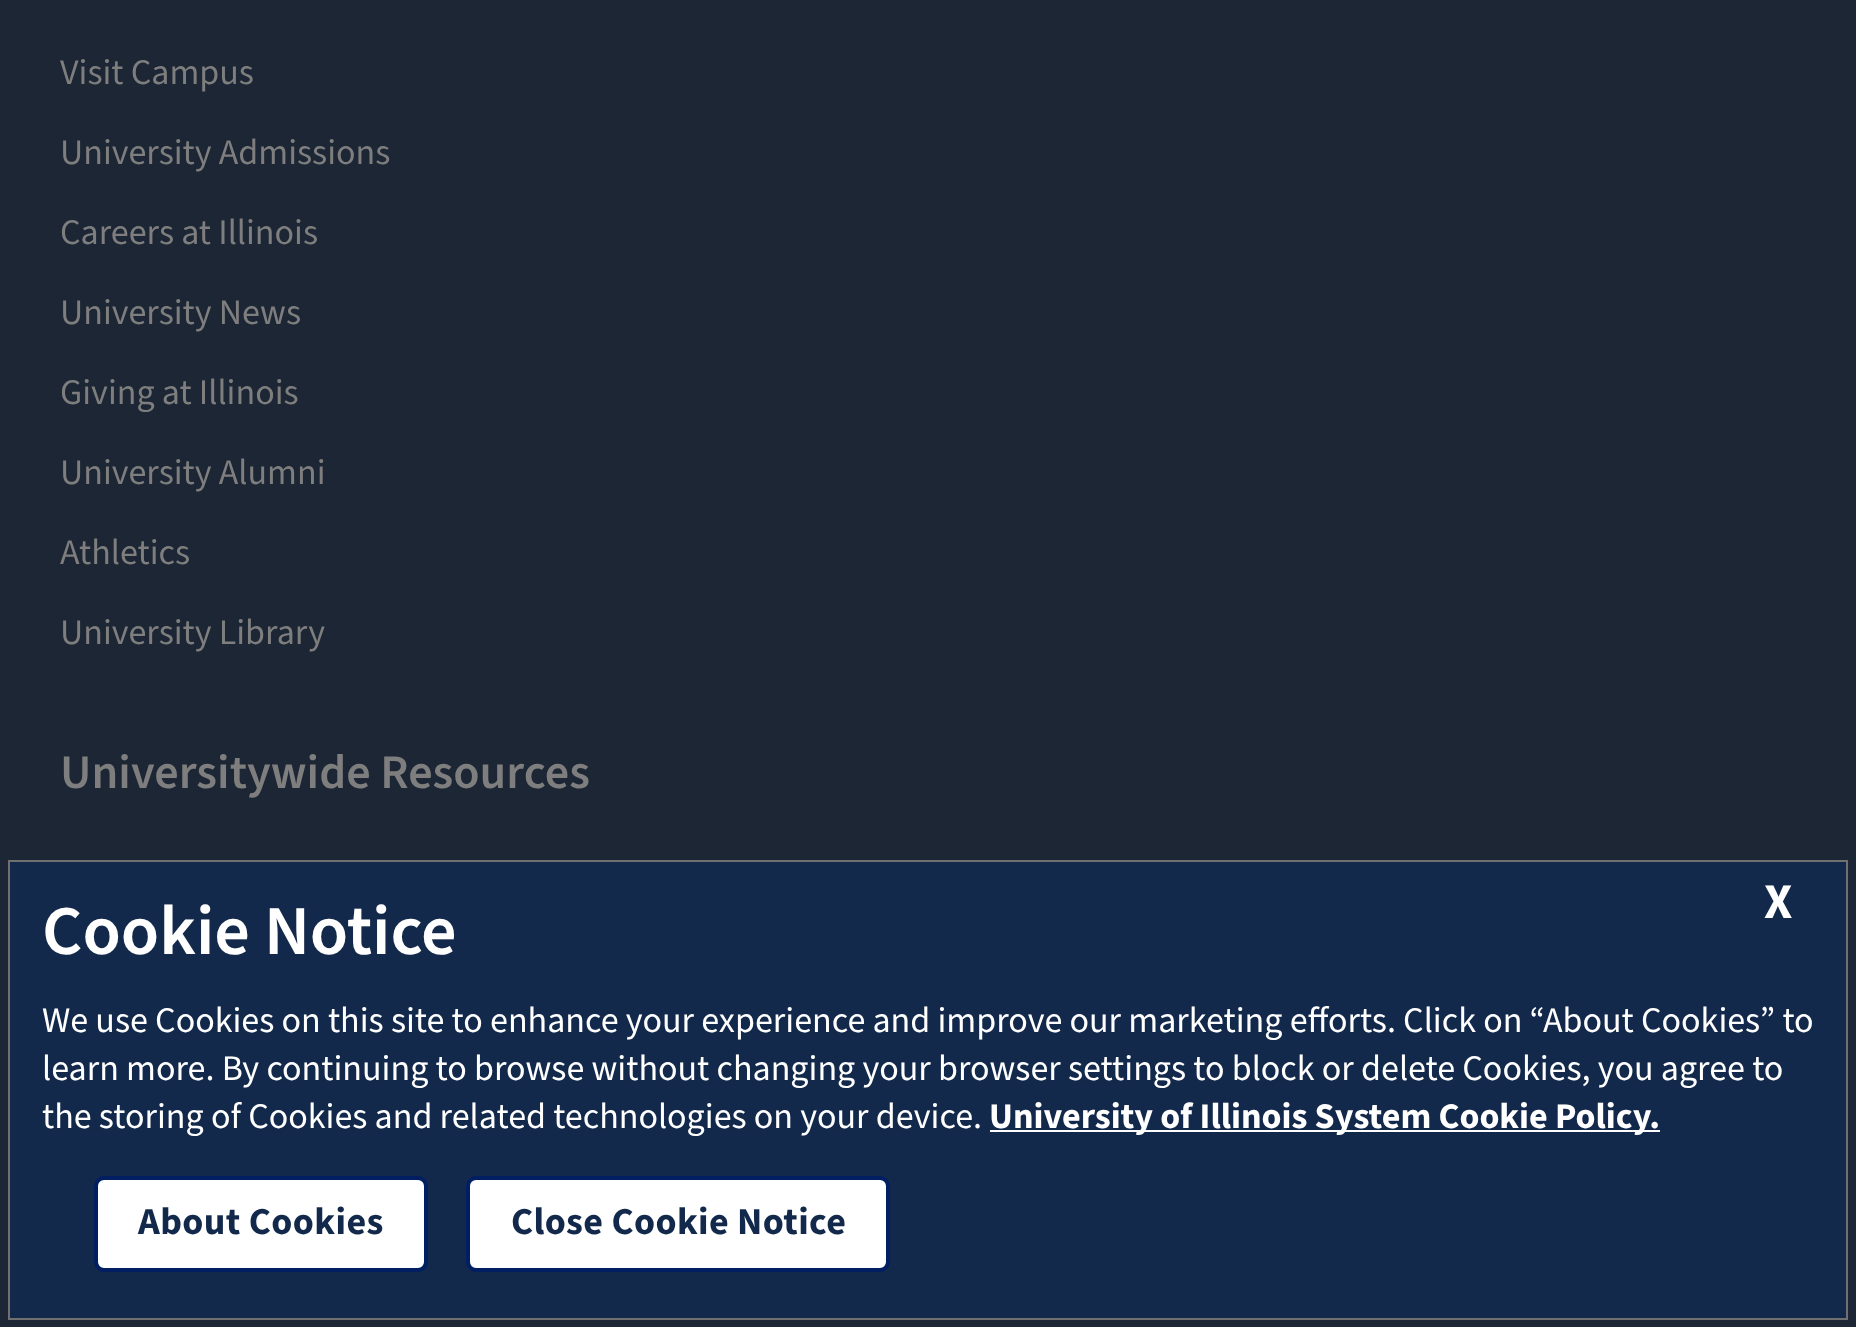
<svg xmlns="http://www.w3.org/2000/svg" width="1856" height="1327">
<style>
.a{font:36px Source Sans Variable;fill:#7e7e7e}
.b{font:600 48px Source Sans Variable;fill:#7e7e7e}
.c{font:600 70px Source Sans Pro;fill:#fff}
.d{font:bold 50px Source Sans Variable;fill:#fff}
.e{font:36px Source Sans Pro;fill:#fff}
.f{font:bold 36px Source Sans Variable;fill:#fff}
.g{font:bold 38px Source Sans Variable;letter-spacing:0.4px;fill:#13294b}
</style>
<rect width="100%" height="100%" fill="#1d2634"/>
<path fill="#13294b" stroke="#707070" stroke-width="2" d="M9 861h1838v458H9z"/>
<path fill="#fff" d="M990 1130h670v2H990z"/>
<rect fill="#fff" stroke="#001e62" stroke-width="4" x="96" y="1178" width="330" height="92" rx="8"/>
<rect fill="#fff" stroke="#001e62" stroke-width="4" x="468" y="1178" width="420" height="92" rx="8"/>
<text class="a" x="60" y="84">Visit Campus</text>
<text class="a" x="60" y="164">University Admissions</text>
<text class="a" x="60" y="244">Careers at Illinois</text>
<text class="a" x="60" y="324">University News</text>
<text class="a" x="60" y="404">Giving at Illinois</text>
<text class="a" x="60" y="484">University Alumni</text>
<text class="a" x="60" y="564">Athletics</text>
<text class="a" x="60" y="644">University Library</text>
<text class="b" x="60" y="788">Universitywide Resources</text>
<text class="c" x="42" y="954">Cookie Notice</text>
<text class="d" x="1764" y="918">X</text>
<text class="e" x="42" y="1032">We use Cookies on this site to enhance your experience and improve our marketing efforts. Click on “About Cookies” to</text>
<text class="e" x="42" y="1080">learn more. By continuing to browse without changing your browser settings to block or delete Cookies, you agree to</text>
<text class="e" x="42" y="1128">the storing of Cookies and related technologies on your device.</text>
<text class="f" x="989" y="1128">University of Illinois System Cookie Policy.</text>
<text class="g" x="138" y="1234">About Cookies</text>
<text class="g" x="511" y="1234">Close Cookie Notice</text>
</svg>
